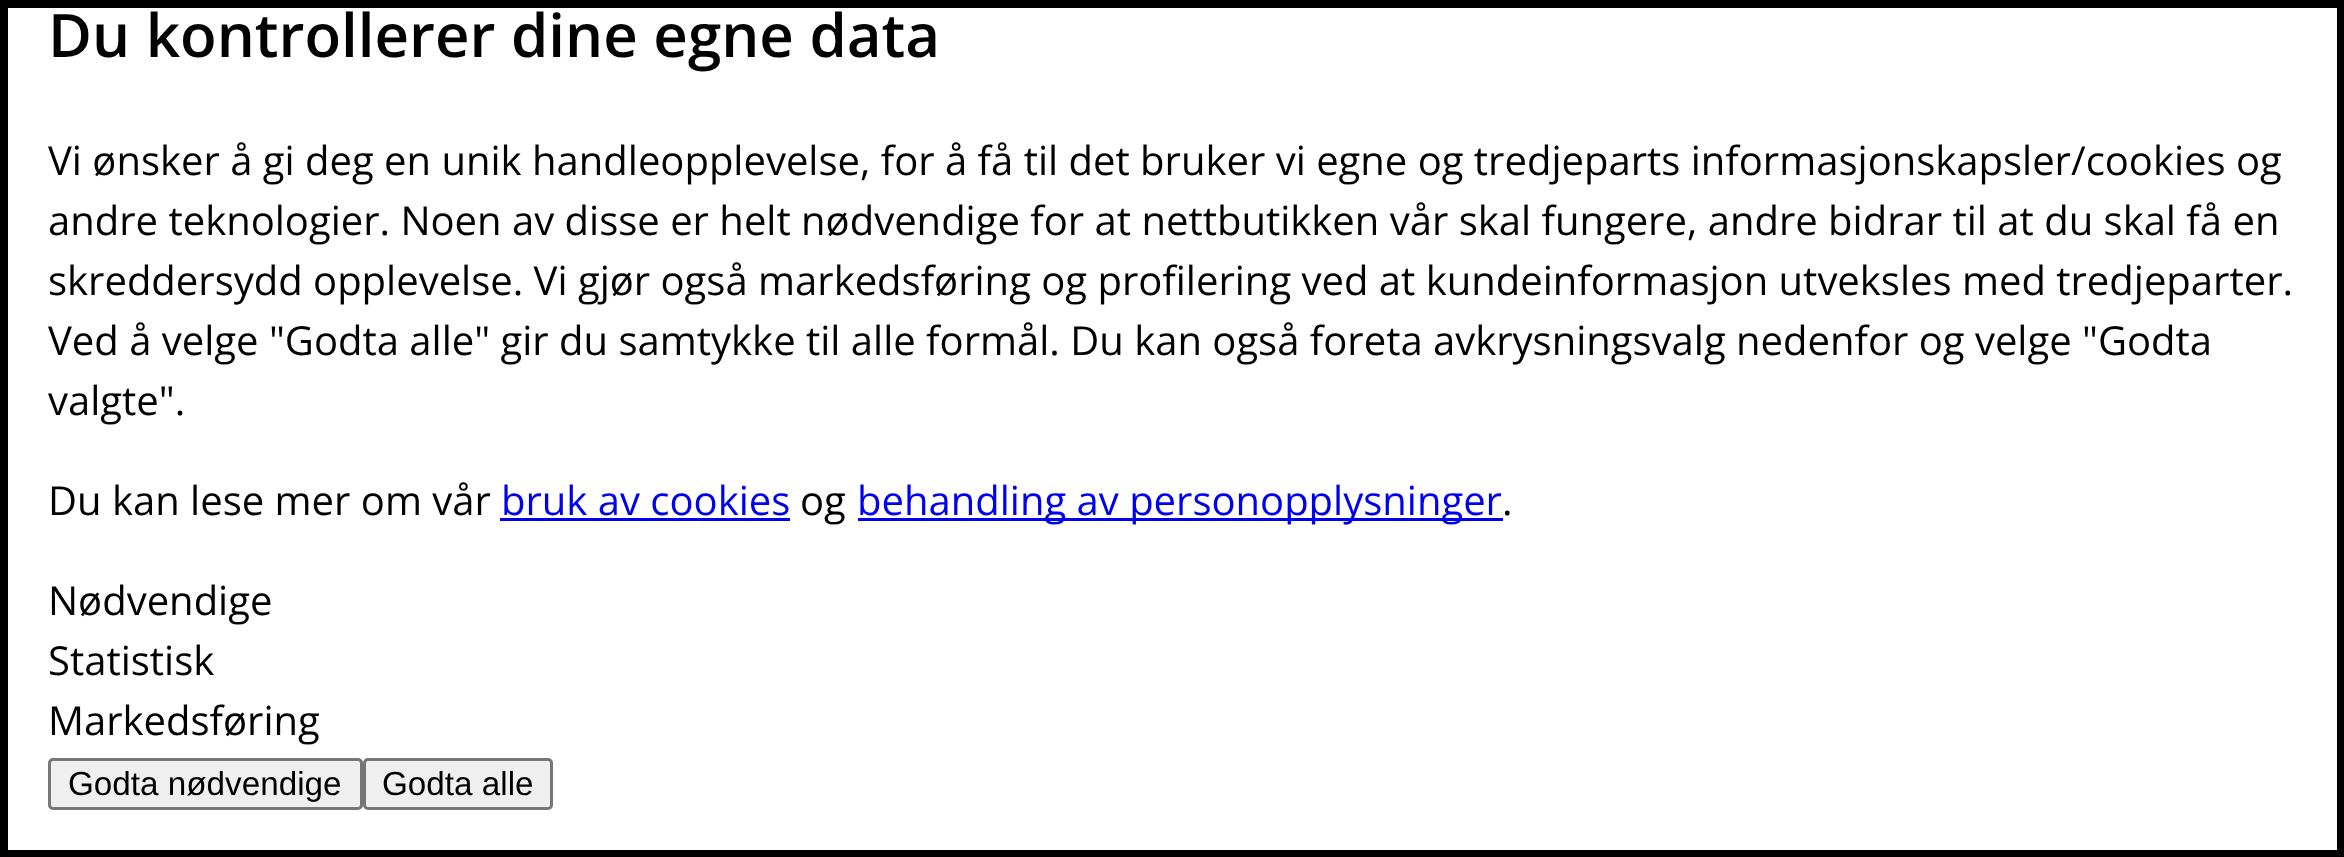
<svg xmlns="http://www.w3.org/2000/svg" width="2344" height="857">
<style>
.a{font:600 60px Open Sans;fill:#000}
.b{font:40px Open Sans;fill:#000}
.c{font:40px Open Sans;fill:#00e}
.d{font:33.25px Liberation Sans;fill:#000}
</style>
<rect width="100%" height="100%" fill="#fff"/>
<path fill="none" stroke="#000" stroke-width="8" d="M4 4h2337v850H4z"/>
<path fill="#00e" d="M500 518h290v3H500z"/>
<path fill="#00e" d="M858 518h645v3H858z"/>
<rect fill="#efefef" stroke="#767676" stroke-width="3" x="49.5" y="759.5" width="312" height="49" rx="3.5"/>
<rect fill="#efefef" stroke="#767676" stroke-width="3" x="364.5" y="759.5" width="187" height="49" rx="3.5"/>
<text class="a" x="48" y="57">Du kontrollerer dine egne data</text>
<text class="b" x="48" y="175">Vi ønsker å gi deg en unik handleopplevelse, for å få til det bruker vi egne og tredjeparts informasjonskapsler/cookies og</text>
<text class="b" x="48" y="235">andre teknologier. Noen av disse er helt nødvendige for at nettbutikken vår skal fungere, andre bidrar til at du skal få en</text>
<text class="b" x="48" y="295">skreddersydd opplevelse. Vi gjør også markedsføring og profilering ved at kundeinformasjon utveksles med tredjeparter.</text>
<text class="b" x="48" y="355">Ved å velge "Godta alle" gir du samtykke til alle formål. Du kan også foreta avkrysningsvalg nedenfor og velge "Godta</text>
<text class="b" x="48" y="415">valgte".</text>
<text class="b" x="48" y="515">Du kan lese mer om vår</text>
<text class="c" x="501" y="515">bruk av cookies</text>
<text class="b" x="800" y="515">og</text>
<text class="c" x="857" y="515">behandling av personopplysninger</text>
<text class="b" x="1502" y="515">.</text>
<text class="b" x="48" y="615">Nødvendige</text>
<text class="b" x="48" y="675">Statistisk</text>
<text class="b" x="48" y="735">Markedsføring</text>
<text class="d" x="68" y="795">Godta nødvendige</text>
<text class="d" x="382" y="795">Godta alle</text>
</svg>
